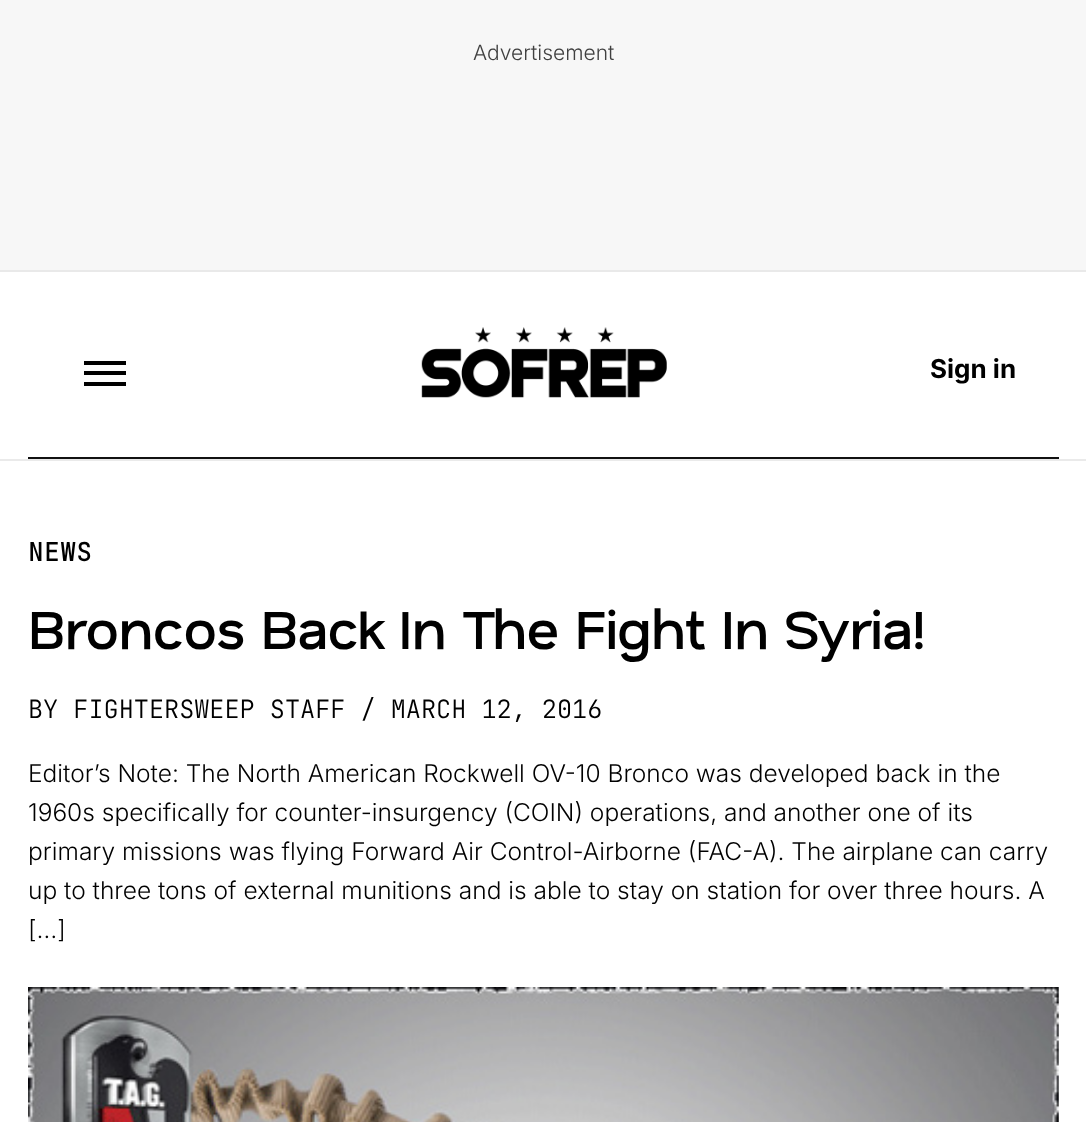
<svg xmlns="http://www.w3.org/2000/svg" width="1086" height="1122">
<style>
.a{font:300 21px Inter;fill:#404040}
.b{font:bold 26px Inter;fill:#000}
.c{font:bold 25.2px JetBrains Mono;letter-spacing:1px;fill:#000}
.d{font:600 56px Nata Sans;letter-spacing:-0.55px;fill:#000}
.e{font:300 25.2px JetBrains Mono;fill:#000}
.f{font:300 24.5px Inter;fill:#000}
</style>
<rect width="100%" height="100%" fill="#fff"/>
<path fill="#f7f7f7" d="M0 0h1086v270H0z"/>
<path fill="#e9e9e9" d="M0 270h1086v2H0z"/>
<path fill="#000" d="M84 371h42v4H84z"/>
<path fill="#000" d="M84 361h42v4H84z"/>
<path fill="#000" d="M84 382h42v4H84z"/>
<image href="1.png" x="421" y="327" width="246" height="71"/>
<path fill="#111" d="M28 457h1031v2H28z"/>
<path fill="#eaeaea" d="M0 459h1086v2H0z"/>
<image href="2.png" x="28" y="987" width="1031" height="135"/>
<text class="a" x="473" y="60">Advertisement</text>
<text class="b" x="930" y="378">Sign in</text>
<text class="c" x="28" y="561">NEWS</text>
<text class="d" x="28" y="649">Broncos Back In The Fight In Syria!</text>
<text class="e" x="28" y="718">BY FIGHTERSWEEP STAFF / MARCH 12, 2016</text>
<text class="f" x="28" y="782">Editor’s Note: The North American Rockwell OV-10 Bronco was developed back in the</text>
<text class="f" x="28" y="821">1960s specifically for counter-insurgency (COIN) operations, and another one of its</text>
<text class="f" x="28" y="860">primary missions was flying Forward Air Control-Airborne (FAC-A). The airplane can carry</text>
<text class="f" x="28" y="899">up to three tons of external munitions and is able to stay on station for over three hours. A</text>
<text class="f" x="28" y="938">[…]</text>
</svg>
